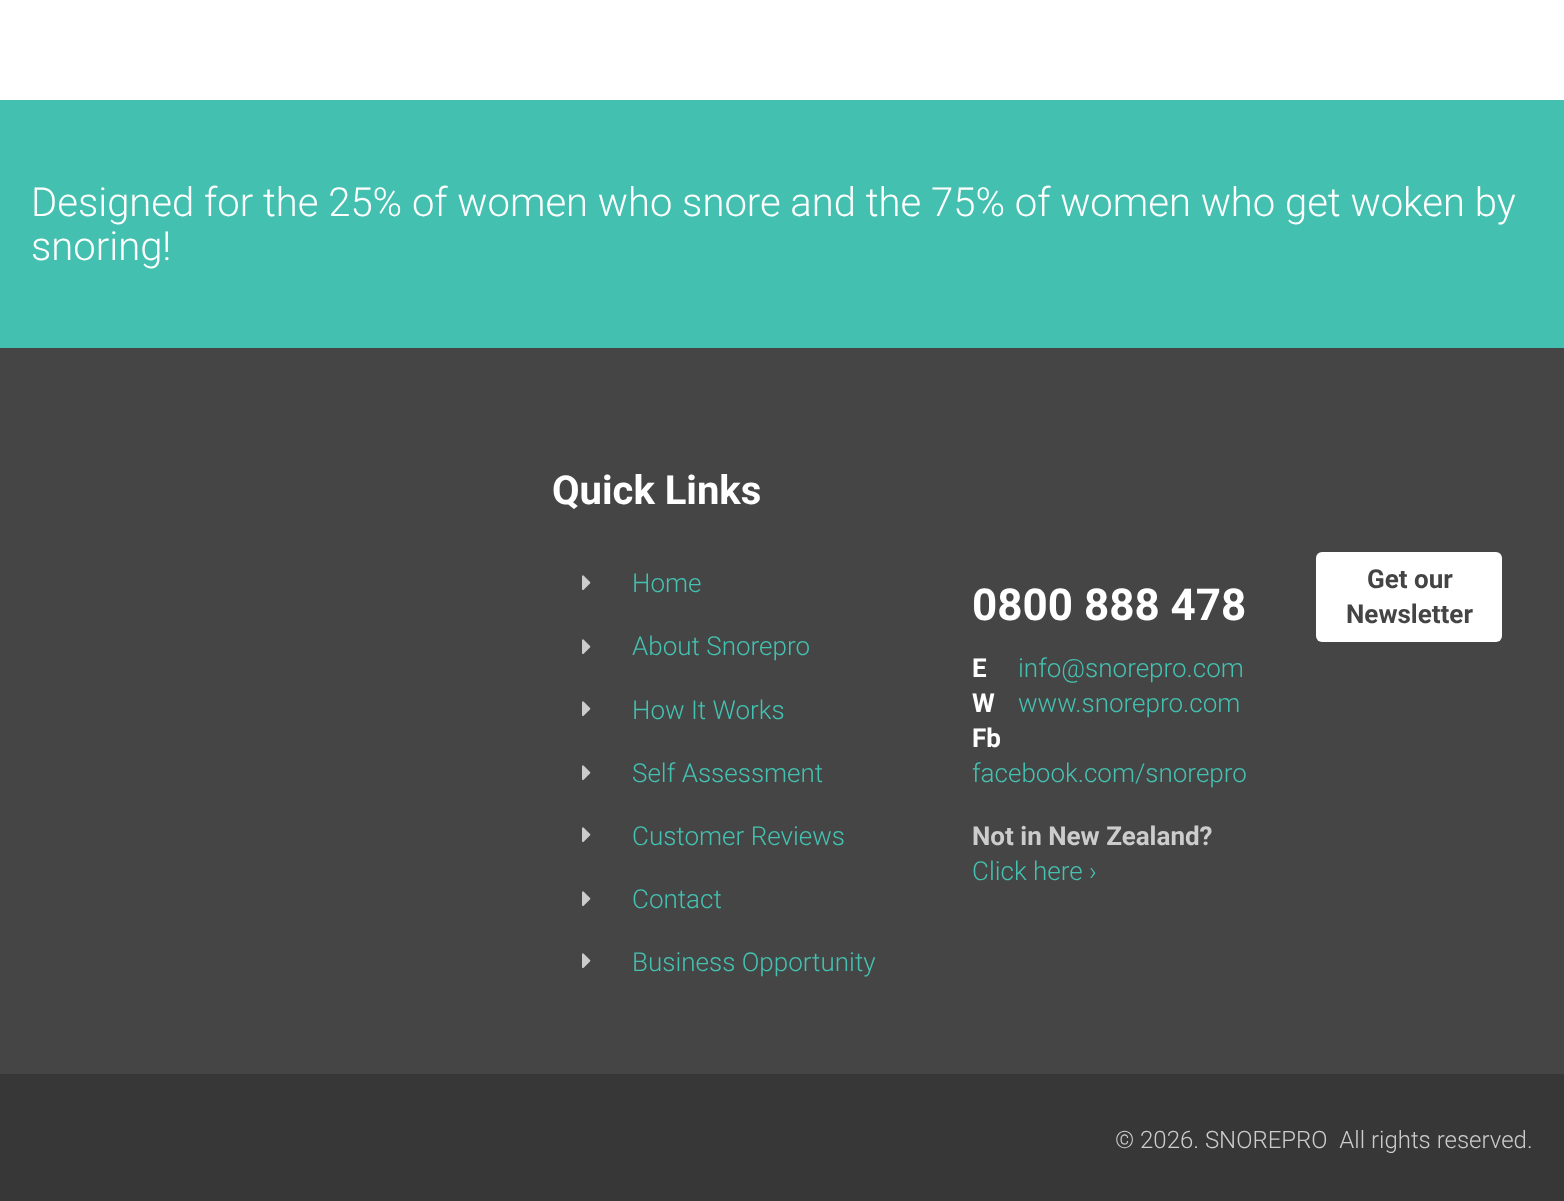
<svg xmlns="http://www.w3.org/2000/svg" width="1564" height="1201">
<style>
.a{font:300 40px Roboto;fill:#fff}
.b{font:bold 40px Roboto;fill:#fff}
.c{font:300 26px Roboto;fill:#45c1b1}
.d{font:bold 44px Roboto;fill:#fff}
.e{font:bold 26px Roboto;fill:#fff}
.f{font:bold 26px Roboto;fill:#ccc}
.g{font:bold 26px Roboto;fill:#444}
.h{font:300 24px Roboto;fill:#ccc}
</style>
<rect width="100%" height="100%" fill="#fff"/>
<path fill="#44c0b0" d="M0 100h1564v248H0z"/>
<path fill="#454545" d="M0 348h1564v726H0z"/>
<image href="1.png" x="582" y="575" width="9" height="16"/>
<image href="1.png" x="582" y="639" width="9" height="16"/>
<image href="1.png" x="582" y="701" width="9" height="16"/>
<image href="1.png" x="582" y="765" width="9" height="16"/>
<image href="1.png" x="582" y="827" width="9" height="16"/>
<image href="1.png" x="582" y="891" width="9" height="16"/>
<image href="1.png" x="582" y="953" width="9" height="16"/>
<rect fill="#fff" x="1316" y="552" width="186" height="90" rx="6"/>
<path fill="#373737" d="M0 1074h1564v127H0z"/>
<text class="a" x="31" y="216">Designed for the 25% of women who snore and the 75% of women who get woken by</text>
<text class="a" x="31" y="260">snoring!</text>
<text class="b" x="552" y="504">Quick Links</text>
<text class="c" x="632" y="592">Home</text>
<text class="c" x="632" y="655">About Snorepro</text>
<text class="c" x="632" y="719">How It Works</text>
<text class="c" x="632" y="782">Self Assessment</text>
<text class="c" x="632" y="845">Customer Reviews</text>
<text class="c" x="632" y="908">Contact</text>
<text class="c" x="632" y="971">Business Opportunity</text>
<text class="d" x="972" y="620">0800 888 478</text>
<text class="e" x="972" y="677">E</text>
<text class="c" x="1018" y="677">info@snorepro.com</text>
<text class="e" x="972" y="712">W</text>
<text class="c" x="1018" y="712">www.snorepro.com</text>
<text class="e" x="972" y="747">Fb</text>
<text class="c" x="972" y="782">facebook.com/snorepro</text>
<text class="f" x="972" y="845">Not in New Zealand?</text>
<text class="c" x="972" y="880">Click here ›</text>
<text class="g" x="1367" y="588">Get our</text>
<text class="g" x="1346" y="623">Newsletter</text>
<text class="h" xml:space="preserve" x="1115" y="1148">© 2026. SNOREPRO  All rights reserved.</text>
</svg>
